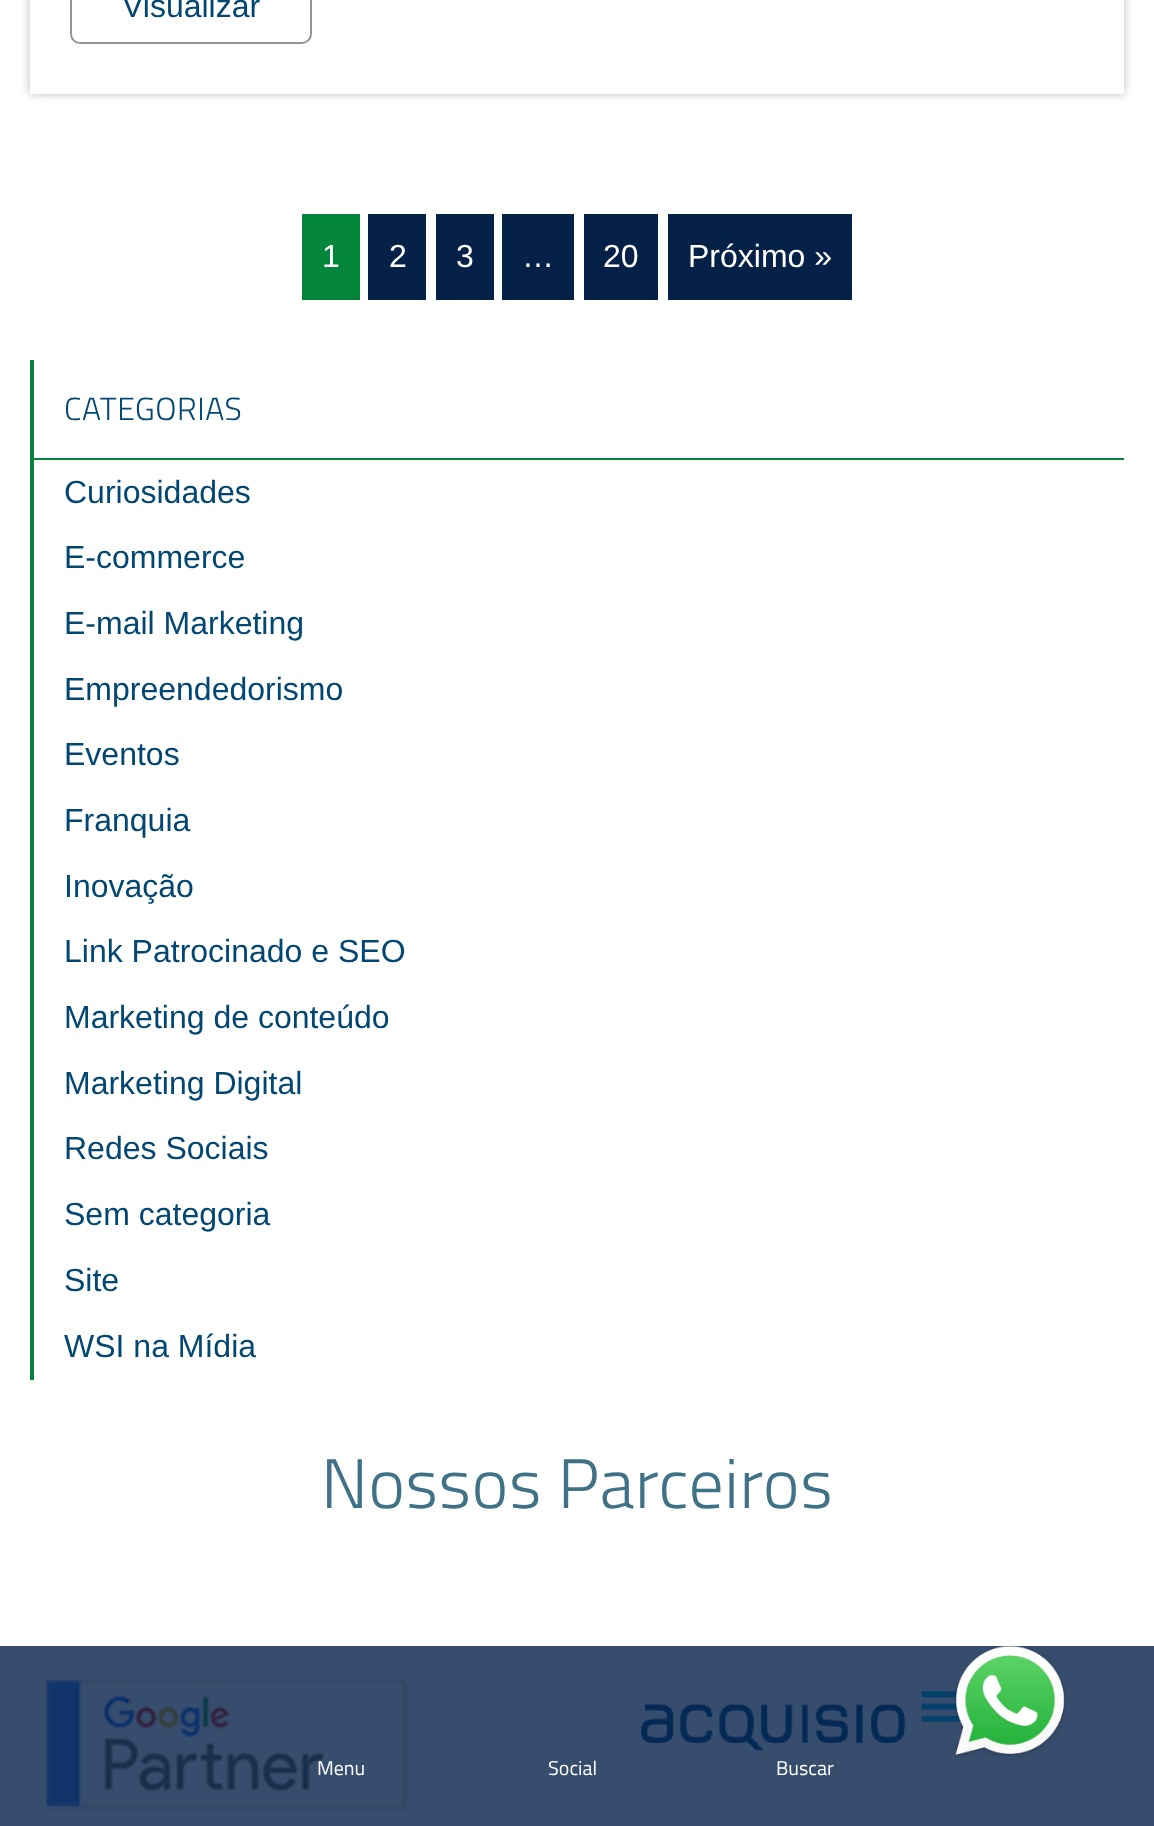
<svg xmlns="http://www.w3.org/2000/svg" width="1154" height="1826">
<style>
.a{font:32px Liberation Sans;fill:#024772}
.b{font:32px Liberation Sans;fill:#fff}
.c{font:300 32px Titillium Web;letter-spacing:0.5px;fill:#024772}
.d{font:300 70px Titillium Web;letter-spacing:0.5px;fill:#3f7287}
.e{font:20px Titillium Web;fill:#fff}
</style>
<defs>
<clipPath id="clip1"><path d="M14 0h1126v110h-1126zm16-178h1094v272h-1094z" clip-rule="evenodd"/></clipPath>
</defs>
<rect width="100%" height="100%" fill="#fff"/>
<path fill="#374d6d" d="M0 1646h1154v180H0z"/>
<g clip-path="url(#clip1)">
<path fill="#bbb" filter="blur(5px)" d="M30 -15h1094v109H30z"/>
</g>
<rect fill="none" stroke="#959595" stroke-width="2" x="71" y="-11" width="240" height="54" rx="9"/>
<path fill="#03863b" d="M302 214h58v86H302z"/>
<path fill="#052148" d="M368 214h58v86H368z"/>
<path fill="#052148" d="M436 214h58v86H436z"/>
<path fill="#052148" d="M502 214h72v86H502z"/>
<path fill="#052148" d="M584 214h74v86H584z"/>
<path fill="#052148" d="M668 214h184v86H668z"/>
<path fill="#03863b" d="M30 458h1094v2H30z"/>
<path fill="#03863b" d="M30 360h4v1020H30z"/>
<image href="1.png" x="45" y="1679" width="365" height="133"/>
<image href="2.png" x="641" y="1691" width="323" height="60"/>
<image href="3.png" x="954" y="1645" width="112" height="112"/>
<text class="a" x="122" y="17">Visualizar</text>
<text class="b" x="322" y="267">1</text>
<text class="b" x="389" y="267">2</text>
<text class="b" x="456" y="267">3</text>
<text class="b" x="522" y="267">…</text>
<text class="b" x="603" y="267">20</text>
<text class="b" x="688" y="267">Próximo »</text>
<text class="c" x="64" y="420">CATEGORIAS</text>
<text class="a" x="64" y="503">Curiosidades</text>
<text class="a" x="64" y="568">E-commerce</text>
<text class="a" x="64" y="634">E-mail Marketing</text>
<text class="a" x="64" y="700">Empreendedorismo</text>
<text class="a" x="64" y="765">Eventos</text>
<text class="a" x="64" y="831">Franquia</text>
<text class="a" x="64" y="897">Inovação</text>
<text class="a" x="64" y="962">Link Patrocinado e SEO</text>
<text class="a" x="64" y="1028">Marketing de conteúdo</text>
<text class="a" x="64" y="1094">Marketing Digital</text>
<text class="a" x="64" y="1159">Redes Sociais</text>
<text class="a" x="64" y="1225">Sem categoria</text>
<text class="a" x="64" y="1291">Site</text>
<text class="a" x="64" y="1357">WSI na Mídia</text>
<text class="d" x="321" y="1508">Nossos Parceiros</text>
<text class="e" x="317" y="1775">Menu</text>
<text class="e" x="548" y="1775">Social</text>
<text class="e" x="776" y="1775">Buscar</text>
</svg>
